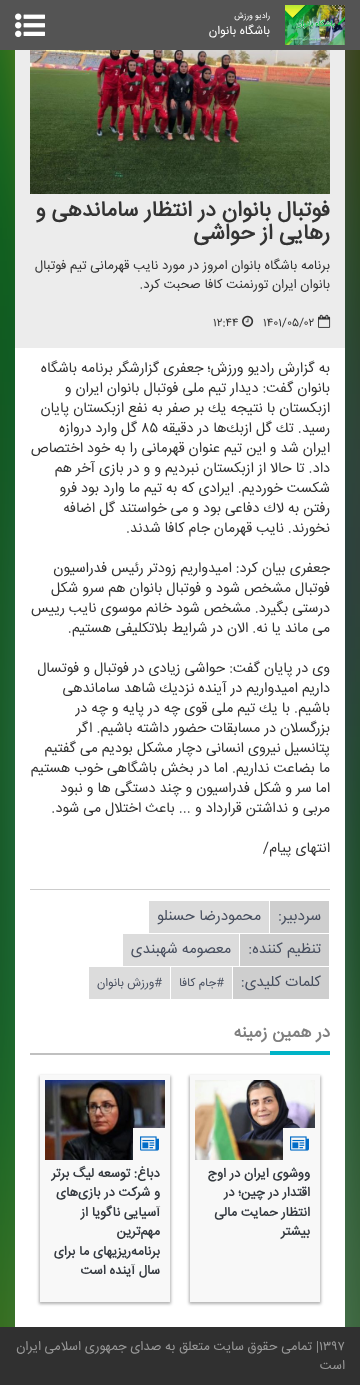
<svg xmlns="http://www.w3.org/2000/svg" width="360" height="1385">
<style>
.a{font:8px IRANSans;direction:rtl;fill:#fff}
.b{font:12px IRANSans;direction:rtl;fill:#fff}
.c{font:bold 21.6px IRANSans;direction:rtl;fill:#333}
.d{font:13px IRANSans;direction:rtl;fill:#333}
.e{font:11.75px IRANSans;fill:#333}
.f{font:14.3px IRANSans;direction:rtl;fill:#333}
.g{font:14.3px IRANSans;fill:#333}
.h{font:15px IRANSans;direction:rtl;fill:#484f5f}
.i{font:11.75px IRANSans;direction:rtl;fill:#484f5f}
.j{font:bold 17px IRANSans;direction:rtl;fill:#808080}
.k{font:bold 13px IRANSans;direction:rtl;fill:#34393f}
.l{font:13px IRANSans;fill:#989898}
.m{font:bold 13px Liberation Serif;fill:#989898}
.n{font:13px IRANSans;direction:rtl;fill:#989898}
</style>
<rect width="100%" height="100%" fill="#fff"/>
<path fill="#545454" d="M0 0h360v50H0z"/>
<image href="1.png" x="285" y="5" width="60" height="40"/>
<image href="2.png" x="15" y="13" width="30" height="25"/>
<image href="3.png" x="0" y="50" width="360" height="1277"/>
<path fill="#fff" d="M15 348h330v979H15z"/>
<path fill="#ececec" d="M15 50h330v298H15z"/>
<image href="4.png" x="30" y="50" width="300" height="144"/>
<image href="5.png" x="318" y="314" width="13" height="14"/>
<image href="6.png" x="242" y="315" width="12" height="12"/>
<path fill="#ccc" d="M30 889h300v1H30z"/>
<path fill="#cecece" d="M270 901h59v32H270z"/>
<path fill="#dcdcdc" d="M149 901h120v32H149z"/>
<path fill="#cecece" d="M240 934h89v32H240z"/>
<path fill="#dcdcdc" d="M123 934h116v32H123z"/>
<path fill="#cecece" d="M233 967h96v32H233z"/>
<path fill="#dcdcdc" d="M171 967h61v32H171z"/>
<path fill="#dcdcdc" d="M89 967h81v32H89z"/>
<path fill="#c0c0c0" d="M30 1053h240v2H30z"/>
<path fill="#00b4c7" d="M270 1051h60v4H270z"/>
<path fill="#0000004d" filter="blur(1.5px)" d="M189 1076h132v228H189z"/>
<path fill="#f8f8f8" d="M190 1075h130v227H190z"/>
<image href="7.png" x="195" y="1080" width="120" height="80"/>
<path fill="#f8f8f8" d="M283 1128h32v32H283z"/>
<image href="8.png" x="290" y="1136" width="19" height="15"/>
<path fill="#0000004d" filter="blur(1.5px)" d="M39 1076h132v228H39z"/>
<path fill="#f8f8f8" d="M40 1075h130v227H40z"/>
<image href="9.png" x="45" y="1080" width="120" height="80"/>
<path fill="#f8f8f8" d="M133 1128h32v32H133z"/>
<image href="8.png" x="140" y="1136" width="19" height="15"/>
<path fill="#303030" d="M0 1327h360v58H0z"/>
<text class="a" x="270" y="18">رادیو ورزش</text>
<text class="b" x="270" y="34">باشگاه بانوان</text>
<text class="c" x="330" y="216">فوتبال بانوان در انتظار ساماندهی و</text>
<text class="c" x="330" y="239">رهایی از حواشی</text>
<text class="d" x="330" y="269">برنامه باشگاه بانوان امروز در مورد نایب قهرمانی تیم فوتبال</text>
<text class="d" x="330" y="288">بانوان ایران تورنمنت كافا صحبت كرد.</text>
<text class="e" x="263" y="326">۱۴۰۱/۰۵/۰۲</text>
<text class="e" x="213" y="326">۱۲:۴۴</text>
<text class="f" x="330" y="372">به گزارش رادیو ورزش؛ جعفری گزارشگر برنامه باشگاه</text>
<text class="f" x="330" y="392">بانوان گفت: دیدار تیم ملی فوتبال بانوان ایران و</text>
<text class="f" x="330" y="412">ازبكستان با نتیجه یك بر صفر به نفع ازبكستان پایان</text>
<text class="f" x="330" y="432">رسید. تك گل ازبك‌ها در دقیقه</text>
<text class="g" x="141" y="432">۸۵</text>
<text class="f" x="137" y="432">گل وارد دروازه</text>
<text class="f" x="330" y="452">ایران شد و این تیم عنوان قهرمانی را به خود اختصاص</text>
<text class="f" x="330" y="472">داد. تا حالا از ازبكستان نبردیم و و در بازی آخر هم</text>
<text class="f" x="330" y="492">شكست خوردیم. ایرادی كه به تیم ما وارد بود فرو</text>
<text class="f" x="330" y="512">رفتن به لاك دفاعی بود و می خواستند گل اضافه</text>
<text class="f" x="330" y="532">نخورند. نایب قهرمان جام كافا شدند.</text>
<text class="f" x="330" y="572">جعفری بیان كرد: امیدواریم زودتر رئیس فدراسیون</text>
<text class="f" x="330" y="592">فوتبال مشخص شود و فوتبال بانوان هم سرو شكل</text>
<text class="f" x="330" y="612">درستی بگیرد. مشخص شود خانم موسوی نایب رییس</text>
<text class="f" x="330" y="632">می ماند یا نه. الان در شرایط بلاتكلیفی هستیم.</text>
<text class="f" x="330" y="672">وی در پایان گفت: حواشی زیادی در فوتبال و فوتسال</text>
<text class="f" x="330" y="692">داریم امیدواریم در آینده نزدیك شاهد ساماندهی</text>
<text class="f" x="330" y="712">باشیم. با یك تیم ملی قوی چه در پایه و چه در</text>
<text class="f" x="330" y="732">بزرگسلان در مسابقات حضور داشته باشیم. اگر</text>
<text class="f" x="330" y="752">پتانسیل نیروی انسانی دچار مشكل بودیم می گفتیم</text>
<text class="f" x="330" y="772">ما بضاعت نداریم. اما در بخش باشگاهی خوب هستیم</text>
<text class="f" x="330" y="792">اما سر و شكل فدراسیون و چند دستگی ها و نبود</text>
<text class="f" x="330" y="812">مربی و نداشتن قرارداد و ... باعث اختلال می شود.</text>
<text class="f" x="330" y="852">انتهای پیام/</text>
<text class="h" x="321" y="920">سردبیر:</text>
<text class="h" x="261" y="920">محمودرضا حسنلو</text>
<text class="h" x="321" y="953">تنظیم كننده:</text>
<text class="h" x="231" y="953">معصومه شهبندی</text>
<text class="h" x="321" y="986">کلمات کلیدی:</text>
<text class="i" x="224" y="986">#جام كافا</text>
<text class="i" x="162" y="986">#ورزش بانوان</text>
<text class="j" x="330" y="1037">در همین زمینه</text>
<text class="k" x="310" y="1177">ووشوی ایران در اوج</text>
<text class="k" x="310" y="1196">اقتدار در چین؛ در</text>
<text class="k" x="310" y="1216">انتظار حمایت مالی</text>
<text class="k" x="310" y="1235">بیشتر</text>
<text class="k" x="160" y="1177">دباغ: توسعه لیگ برتر</text>
<text class="k" x="160" y="1196">و شركت در بازی‌های</text>
<text class="k" x="160" y="1216">آسیایی ناگویا از</text>
<text class="k" x="160" y="1235">مهم‌ترین</text>
<text class="k" x="160" y="1255">برنامه‌‌ریزیهای ما برای</text>
<text class="k" x="160" y="1274">سال آینده است</text>
<text class="l" x="319" y="1350">۱۳۹۷</text>
<text class="m" x="316" y="1350">|</text>
<text class="n" x="312" y="1350">تمامی حقوق سایت متعلق به صدای جمهوری اسلامی ایران</text>
<text class="n" x="345" y="1369">است</text>
</svg>
